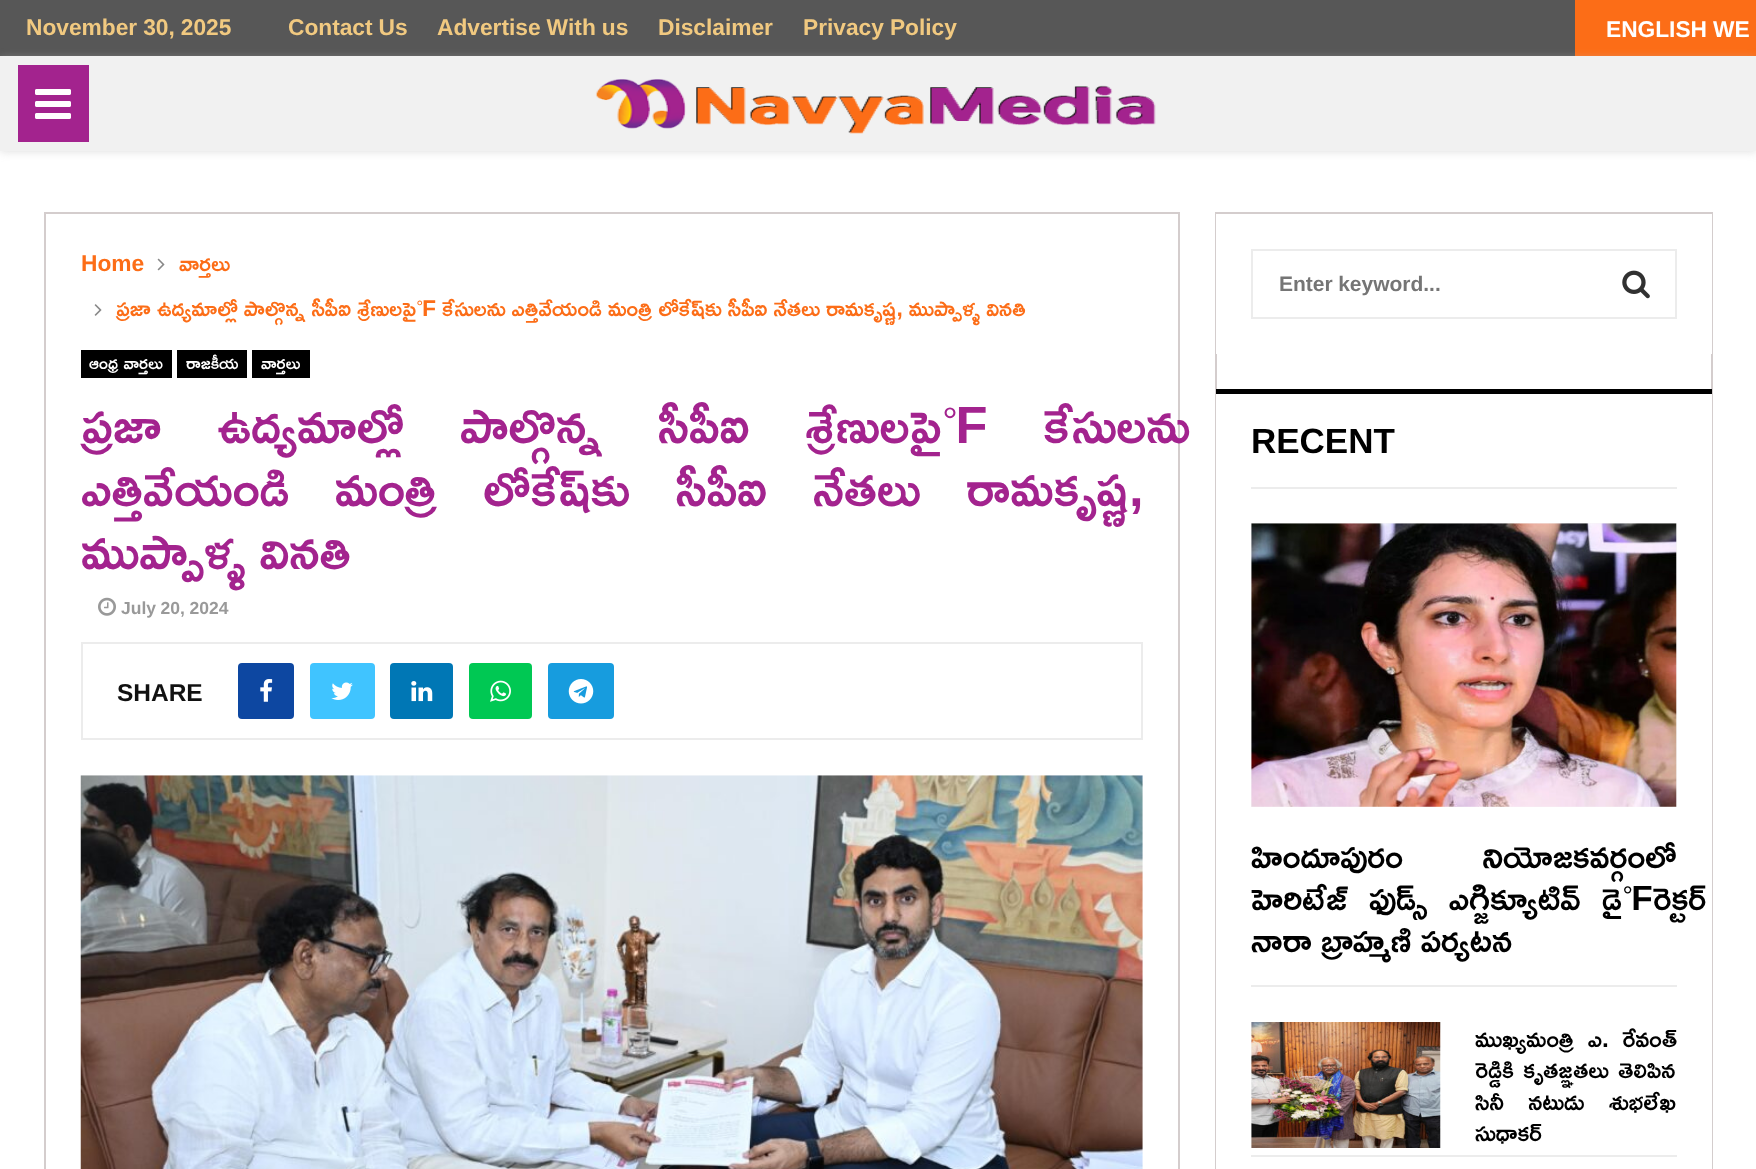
<svg xmlns="http://www.w3.org/2000/svg" width="1756" height="1169">
<style>
.a{font:22.75px Ramabhadra;fill:#f1c980}
.b{font:22.75px Ramabhadra;fill:#fff}
.c{font:22.75px Ramabhadra;fill:#fc6d17}
.d{font:17.5px Ramabhadra;fill:#fff}
.e{font:52.5px Ramabhadra;fill:#a3238e}
.f{font:17.5px Ramabhadra;fill:#999}
.g{font:24.5px Ramabhadra;fill:#111}
.h{font:21px Ramabhadra;fill:#757575}
.i{font:35px Ramabhadra;fill:#000}
.j{font:24.5px Ramabhadra;fill:#000}
</style>
<rect width="100%" height="100%" fill="#fff"/>
<path fill="#575757" d="M0 0h1575v56H0z"/>
<path fill="#fc6d17" d="M1575 0h181v56H1575z"/>
<path fill="#bebebe75" filter="blur(4.5px)" d="M0 58h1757v94H0z"/>
<path fill="#f1f1f1" d="M0 56h1756v95H0z"/>
<path fill="#a3238e" d="M18 65h71v77H18z"/>
<image href="1.png" x="35" y="89" width="36" height="30"/>
<image href="2.png" x="595" y="79" width="561" height="55"/>
<path fill="none" stroke="#d4cdcd" stroke-width="2" d="M45 213h1134v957H45z"/>
<image href="3.png" x="157" y="258" width="8" height="13"/>
<image href="4.png" x="94" y="304" width="8" height="12"/>
<path fill="#000" d="M81 350h91v28H81z"/>
<path fill="#000" d="M177 350h70v28H177z"/>
<path fill="#000" d="M252 350h58v28H252z"/>
<image href="5.png" x="98" y="597" width="18" height="19"/>
<path fill="none" stroke="#ececec" stroke-width="2" d="M82 643h1060v96H82z"/>
<rect fill="#0d47a1" x="238" y="663" width="56" height="56" rx="4"/>
<image href="6.png" x="260" y="679" width="13" height="23"/>
<rect fill="#40c4ff" x="310" y="663" width="65" height="56" rx="4"/>
<image href="7.png" x="331" y="682" width="22" height="18"/>
<rect fill="#0077b5" x="390" y="663" width="63" height="56" rx="4"/>
<image href="8.png" x="411" y="681" width="22" height="21"/>
<rect fill="#00c853" x="469" y="663" width="63" height="56" rx="4"/>
<image href="9.png" x="490" y="680" width="21" height="22"/>
<rect fill="#179cde" x="548" y="663" width="66" height="56" rx="4"/>
<image href="10.png" x="568" y="679" width="26" height="25"/>
<image href="11.png" x="80" y="775" width="1063" height="394"/>
<path fill="none" stroke="#d4cdcd" stroke-width="2" d="M1216 213h496v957H1216z"/>
<path fill="#fff" d="M1216 214h496v140H1216z"/>
<path fill="none" stroke="#ececec" stroke-width="2" d="M1252 250h424v68H1252z"/>
<image href="12.png" x="1622" y="270" width="28" height="29"/>
<path fill="#fff" d="M1216 394h496v775H1216z"/>
<path fill="#ececec" d="M1251 487h426v2H1251z"/>
<path fill="#000" d="M1216 389h496v5H1216z"/>
<path fill="#ececec" d="M1251 985h426v2H1251z"/>
<path fill="#f5f5f5" d="M1251 523h426v284H1251z"/>
<image href="13.png" x="1251" y="523" width="426" height="284"/>
<path fill="#ececec" d="M1251 1155h426v2H1251z"/>
<path fill="#f5f5f5" d="M1251 1022h1v126H1251z"/>
<image href="14.png" x="1251" y="1022" width="190" height="126"/>
<text class="a" x="26" y="35">November 30, 2025</text>
<text class="a" x="288" y="35">Contact Us</text>
<text class="a" x="437" y="35">Advertise With us</text>
<text class="a" x="658" y="35">Disclaimer</text>
<text class="a" x="803" y="35">Privacy Policy</text>
<text class="b" x="1606" y="37">ENGLISH WE</text>
<text class="c" x="81" y="271">Home</text>
<text class="c" x="179" y="271">వార్తలు</text>
<text class="c" x="116" y="316">ప్రజా ఉద్యమాల్లో పాల్గొన్న సీపీఐ శ్రేణులపై కేసులను ఎత్తివేయండి మంత్రి లోకేష్‌కు సీపీఐ నేతలు రామకృష్ణ, ముప్పాళ్ళ వినతి</text>
<text class="d" x="89" y="369">ఆంధ్ర వార్తలు</text>
<text class="d" x="186" y="369">రాజకీయ</text>
<text class="d" x="261" y="369">వార్తలు</text>
<text class="e" x="81" y="443" word-spacing="42">ప్రజా ఉద్యమాల్లో పాల్గొన్న సీపీఐ శ్రేణులపై కేసులను</text>
<text class="e" x="81" y="506">ఎత్తివేయండి</text>
<text class="e" x="335" y="506" word-spacing="32">మంత్రి లోకేష్‌కు సీపీఐ నేతలు రామకృష్ణ,</text>
<text class="e" x="81" y="569">ముప్పాళ్ళ వినతి</text>
<text class="f" x="121" y="614">July 20, 2024</text>
<text class="g" x="117" y="701">SHARE</text>
<text class="h" x="1279" y="291">Enter keyword...</text>
<text class="i" x="1251" y="453">RECENT</text>
<text class="i" x="1251" y="868" word-spacing="70">హిందూపురం నియోజకవర్గంలో</text>
<text class="i" x="1251" y="910" word-spacing="12">హెరిటేజ్ ఫుడ్స్ ఎగ్జిక్యూటివ్ డైరెక్టర్</text>
<text class="i" x="1251" y="952">నారా బ్రాహ్మణి పర్యటన</text>
<text class="j" x="1475" y="1047" word-spacing="7">ముఖ్యమంత్రి ఎ. రేవంత్</text>
<text class="j" x="1475" y="1078" word-spacing="3">రెడ్డికి కృతజ్ఞతలు తెలిపిన</text>
<text class="j" x="1475" y="1110" word-spacing="18">సినీ నటుడు శుభలేఖ</text>
<text class="j" x="1475" y="1141">సుధాకర్</text>
</svg>
